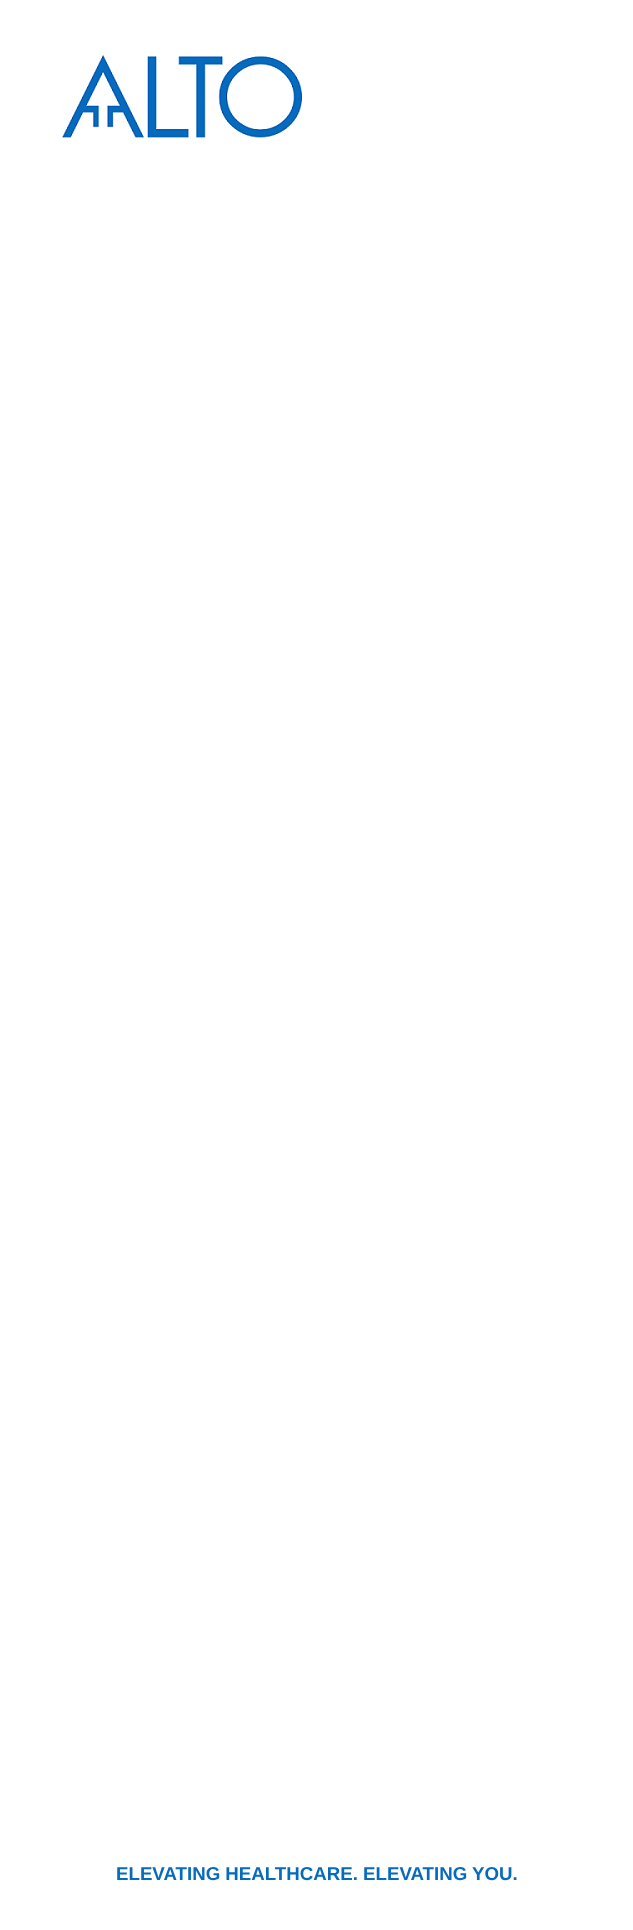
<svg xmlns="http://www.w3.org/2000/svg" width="633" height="1930">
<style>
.a{font:bold 18.7px Liberation Sans;fill:#066abd}
</style>
<rect width="100%" height="100%" fill="#fff"/>
<image href="1.png" x="62" y="55" width="240" height="83"/>
<text class="a" x="116" y="1880">ELEVATING HEALTHCARE. ELEVATING YOU.</text>
</svg>
